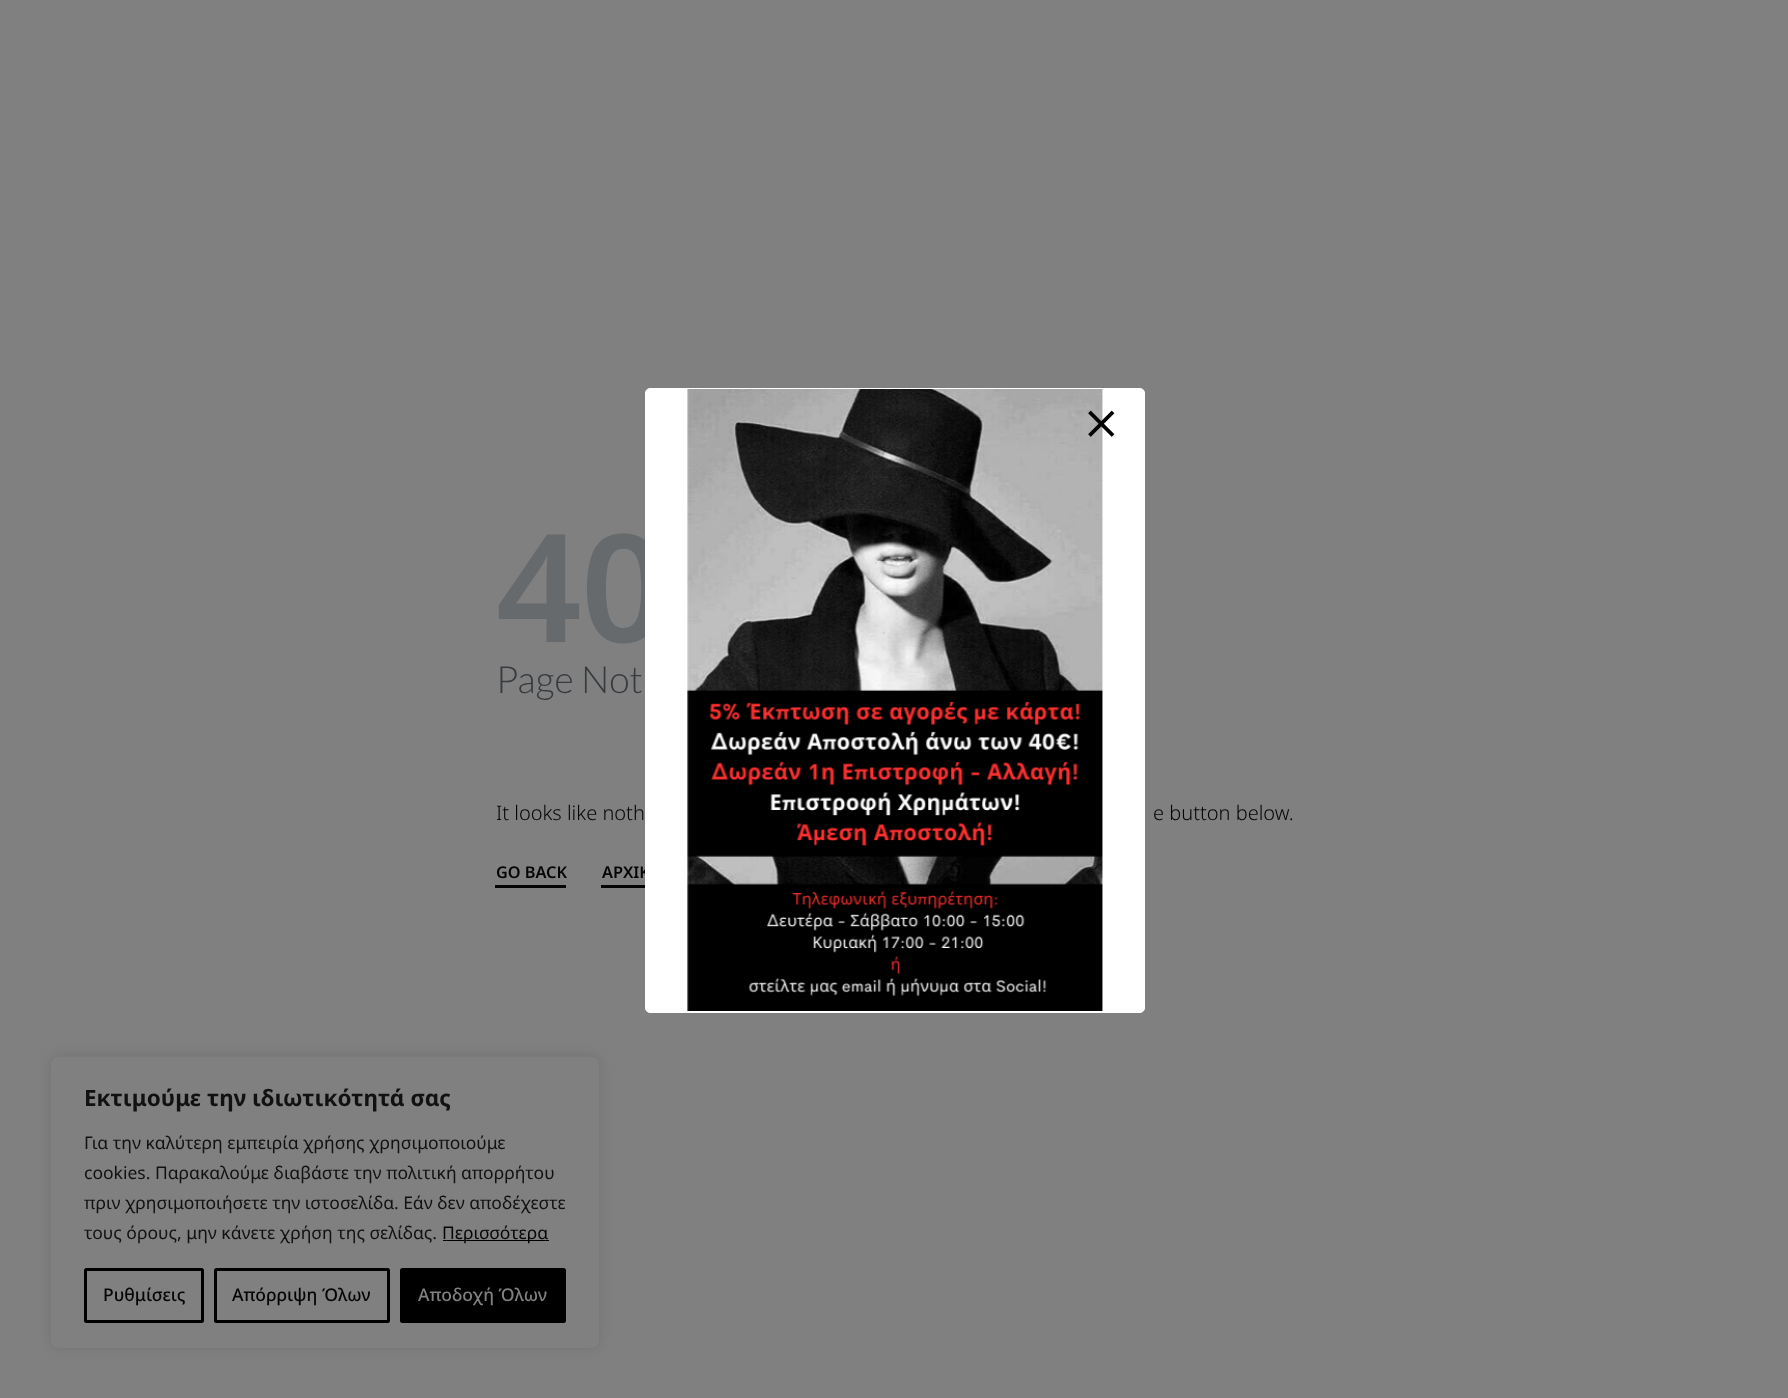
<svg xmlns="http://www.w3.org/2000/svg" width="1788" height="1398">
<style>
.a{font:600 150px Noto Sans;letter-spacing:-1px;fill:#676a6d}
.b{font:300 37.5px Lato;fill:#373b3f}
.c{font:300 20px Noto Sans;fill:#050505}
.d{font:600 16.25px Noto Sans;fill:#050505}
.e{font:bold 22.5px Noto Sans;fill:#111}
.f{font:17.5px Noto Sans;fill:#111}
.g{font:17.5px Noto Sans;fill:#050505}
.h{font:500 17.5px Noto Sans;fill:#050505}
.i{font:500 17.5px Noto Sans;fill:#808080}
</style>
<rect width="100%" height="100%" fill="#808080"/>
<path fill="#050505" d="M495 885h71v3H495z"/>
<path fill="#050505" d="M601 885h44v3H601z"/>
<rect fill="#5656564d" filter="blur(6px)" x="50" y="1055" width="550" height="293" rx="8"/>
<rect fill="#808080" stroke="#7a7a7a" x="50.5" y="1056.5" width="549" height="292" rx="7.5"/>
<path fill="#000" d="M443 1240h106v1H443z"/>
<rect fill="none" stroke="#000" stroke-width="3" x="85.5" y="1269.5" width="117" height="52" rx="1"/>
<rect fill="none" stroke="#000" stroke-width="3" x="215.5" y="1269.5" width="173" height="52" rx="1"/>
<rect fill="#000" stroke="#000" stroke-width="3" x="401.5" y="1269.5" width="163" height="52" rx="1"/>
<text class="a" x="496" y="642">40</text>
<text class="b" x="496" y="693">Page Not</text>
<text class="c" x="496" y="820">It looks like noth</text>
<text class="c" x="1153" y="820">e button below.</text>
<text class="d" x="496" y="878">GO BACK</text>
<text class="d" x="602" y="878">ΑΡΧΙΚ</text>
<rect fill="#fff" stroke="#fff" x="645.5" y="388.5" width="499" height="624" rx="4.5"/>
<image href="1.png" x="687" y="389" width="416" height="622"/>
<image href="2.png" x="1088" y="410" width="27" height="27"/>
<text class="e" x="84" y="1106">Εκτιμούμε την ιδιωτικότητά σας</text>
<text class="f" x="84" y="1149">Για την καλύτερη εμπειρία χρήσης χρησιμοποιούμε</text>
<text class="f" x="84" y="1179">cookies. Παρακαλούμε διαβάστε την πολιτική απορρήτου</text>
<text class="f" x="84" y="1209">πριν χρησιμοποιήσετε την ιστοσελίδα. Εάν δεν αποδέχεστε</text>
<text class="f" x="84" y="1239">τους όρους, μην κάνετε χρήση της σελίδας.</text>
<text class="g" x="442" y="1239">Περισσότερα</text>
<text class="h" x="103" y="1301">Ρυθμίσεις</text>
<text class="h" x="232" y="1301">Απόρριψη Όλων</text>
<text class="i" x="418" y="1301">Αποδοχή Όλων</text>
</svg>
